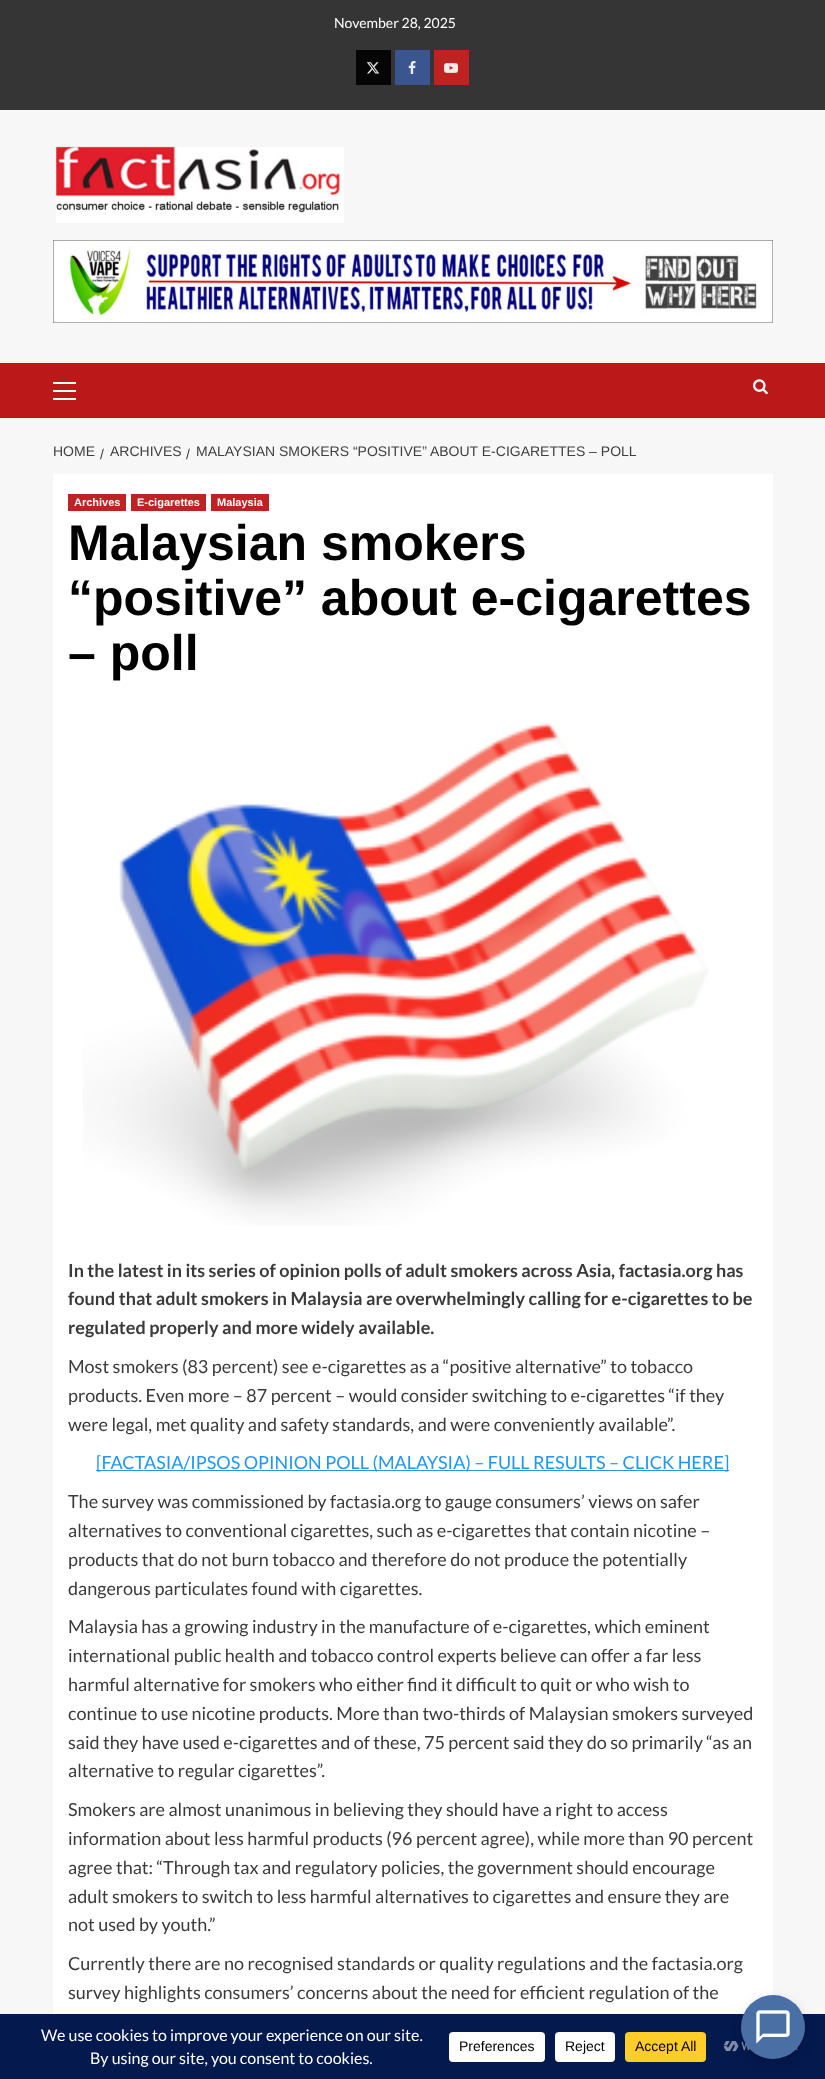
<svg xmlns="http://www.w3.org/2000/svg" width="825" height="2079">
<style>
.a{font:14px Lato;fill:#fff}
.b{font:14px Liberation Sans;fill:#404040}
.c{font:bold 11px Liberation Sans;fill:#fff}
.d{font:bold 50px Liberation Sans;fill:#000}
.e{font:bold 18px Lato;fill:#3a3a3a}
.f{font:18px Lato;fill:#3a3a3a}
.g{font:18px Lato;fill:#2196f3}
.h{font:16px Lato;fill:#fff}
.i{font:14px Liberation Sans;fill:#000}
</style>
<rect width="100%" height="100%" fill="#f7f7f7"/>
<path fill="#353535" d="M0 0h825v110H0z"/>
<path fill="#050505" d="M356 50h35v35H356z"/>
<image href="1.png" x="366" y="62" width="14" height="12"/>
<path fill="#3a558f" d="M395 50h35v35H395z"/>
<image href="2.png" x="408" y="61" width="8" height="13"/>
<path fill="#be2221" d="M434 50h35v35H434z"/>
<image href="3.png" x="444" y="63" width="14" height="10"/>
<image href="4.png" x="56" y="146" width="288" height="77"/>
<image href="5.png" x="53" y="240" width="720" height="83"/>
<path fill="#bb1919" d="M0 363h825v55H0z"/>
<path fill="#fff" d="M53 390h23v2H53z"/>
<path fill="#fff" d="M53 382h23v2H53z"/>
<path fill="#fff" d="M53 398h23v2H53z"/>
<image href="6.png" x="753" y="379" width="15" height="16"/>
<path fill="#fff" d="M53 474h720v1540H53z"/>
<path fill="#be2222" d="M68 494h58v17H68z"/>
<path fill="#be2222" d="M131 494h75v17H131z"/>
<path fill="#be2222" d="M211 494h58v17H211z"/>
<image href="7.png" x="83" y="722" width="626" height="504"/>
<path fill="#2196f3" d="M96 1470h633v1H96z"/>
<path fill="#04194e" d="M0 2014h825v65H0z"/>
<rect fill="#fff" x="449" y="2032" width="96" height="30" rx="4"/>
<rect fill="#fff" x="555" y="2032" width="60" height="30" rx="4"/>
<rect fill="#ffcd2a" x="625" y="2032" width="81" height="30" rx="4"/>
<image href="8.png" x="723" y="2041" width="75" height="11"/>
<rect fill="#00000026" filter="blur(6px)" x="741" y="1999" width="64" height="64" rx="32"/>
<circle fill="#4a6fa5" cx="773" cy="2027" r="32"/>
<image href="9.png" x="756" y="2010" width="34" height="34"/>
<text class="a" x="334" y="28">November 28, 2025</text>
<text class="b" x="53" y="456">HOME</text>
<text class="b" x="100" y="459">/</text>
<text class="b" x="110" y="456">ARCHIVES</text>
<text class="b" x="186" y="459">/</text>
<text class="b" x="196" y="456">MALAYSIAN SMOKERS “POSITIVE” ABOUT E-CIGARETTES – POLL</text>
<text class="c" x="74" y="506">Archives</text>
<text class="c" x="137" y="506">E-cigarettes</text>
<text class="c" x="217" y="506">Malaysia</text>
<text class="d" x="68" y="560">Malaysian smokers</text>
<text class="d" x="68" y="615">“positive” about e-cigarettes</text>
<text class="d" x="68" y="670">– poll</text>
<text class="e" x="68" y="1277">In the latest in its series of opinion polls of adult smokers across Asia, factasia.org has</text>
<text class="e" x="68" y="1305">found that adult smokers in Malaysia are overwhelmingly calling for e-cigarettes to be</text>
<text class="e" x="68" y="1334">regulated properly and more widely available.</text>
<text class="f" x="68" y="1373">Most smokers (83 percent) see e-cigarettes as a “positive alternative” to tobacco</text>
<text class="f" x="68" y="1402">products. Even more – 87 percent – would consider switching to e-cigarettes “if they</text>
<text class="f" x="68" y="1431">were legal, met quality and safety standards, and were conveniently available”.</text>
<text class="g" x="96" y="1469">[FACTASIA/IPSOS OPINION POLL (MALAYSIA) – FULL RESULTS – CLICK HERE]</text>
<text class="f" x="68" y="1508">The survey was commissioned by factasia.org to gauge consumers’ views on safer</text>
<text class="f" x="68" y="1537">alternatives to conventional cigarettes, such as e-cigarettes that contain nicotine –</text>
<text class="f" x="68" y="1566">products that do not burn tobacco and therefore do not produce the potentially</text>
<text class="f" x="68" y="1595">dangerous particulates found with cigarettes.</text>
<text class="f" x="68" y="1633">Malaysia has a growing industry in the manufacture of e-cigarettes, which eminent</text>
<text class="f" x="68" y="1662">international public health and tobacco control experts believe can offer a far less</text>
<text class="f" x="68" y="1691">harmful alternative for smokers who either find it difficult to quit or who wish to</text>
<text class="f" x="68" y="1720">continue to use nicotine products. More than two-thirds of Malaysian smokers surveyed</text>
<text class="f" x="68" y="1749">said they have used e-cigarettes and of these, 75 percent said they do so primarily “as an</text>
<text class="f" x="68" y="1777">alternative to regular cigarettes”.</text>
<text class="f" x="68" y="1816">Smokers are almost unanimous in believing they should have a right to access</text>
<text class="f" x="68" y="1845">information about less harmful products (96 percent agree), while more than 90 percent</text>
<text class="f" x="68" y="1874">agree that: “Through tax and regulatory policies, the government should encourage</text>
<text class="f" x="68" y="1903">adult smokers to switch to less harmful alternatives to cigarettes and ensure they are</text>
<text class="f" x="68" y="1931">not used by youth.”</text>
<text class="f" x="68" y="1970">Currently there are no recognised standards or quality regulations and the factasia.org</text>
<text class="f" x="68" y="1999">survey highlights consumers’ concerns about the need for efficient regulation of the</text>
<text class="h" x="41" y="2041">We use cookies to improve your experience on our site.</text>
<text class="h" x="90" y="2064">By using our site, you consent to cookies.</text>
<text class="i" x="459" y="2051">Preferences</text>
<text class="i" x="565" y="2051">Reject</text>
<text class="i" x="635" y="2051">Accept All</text>
</svg>
